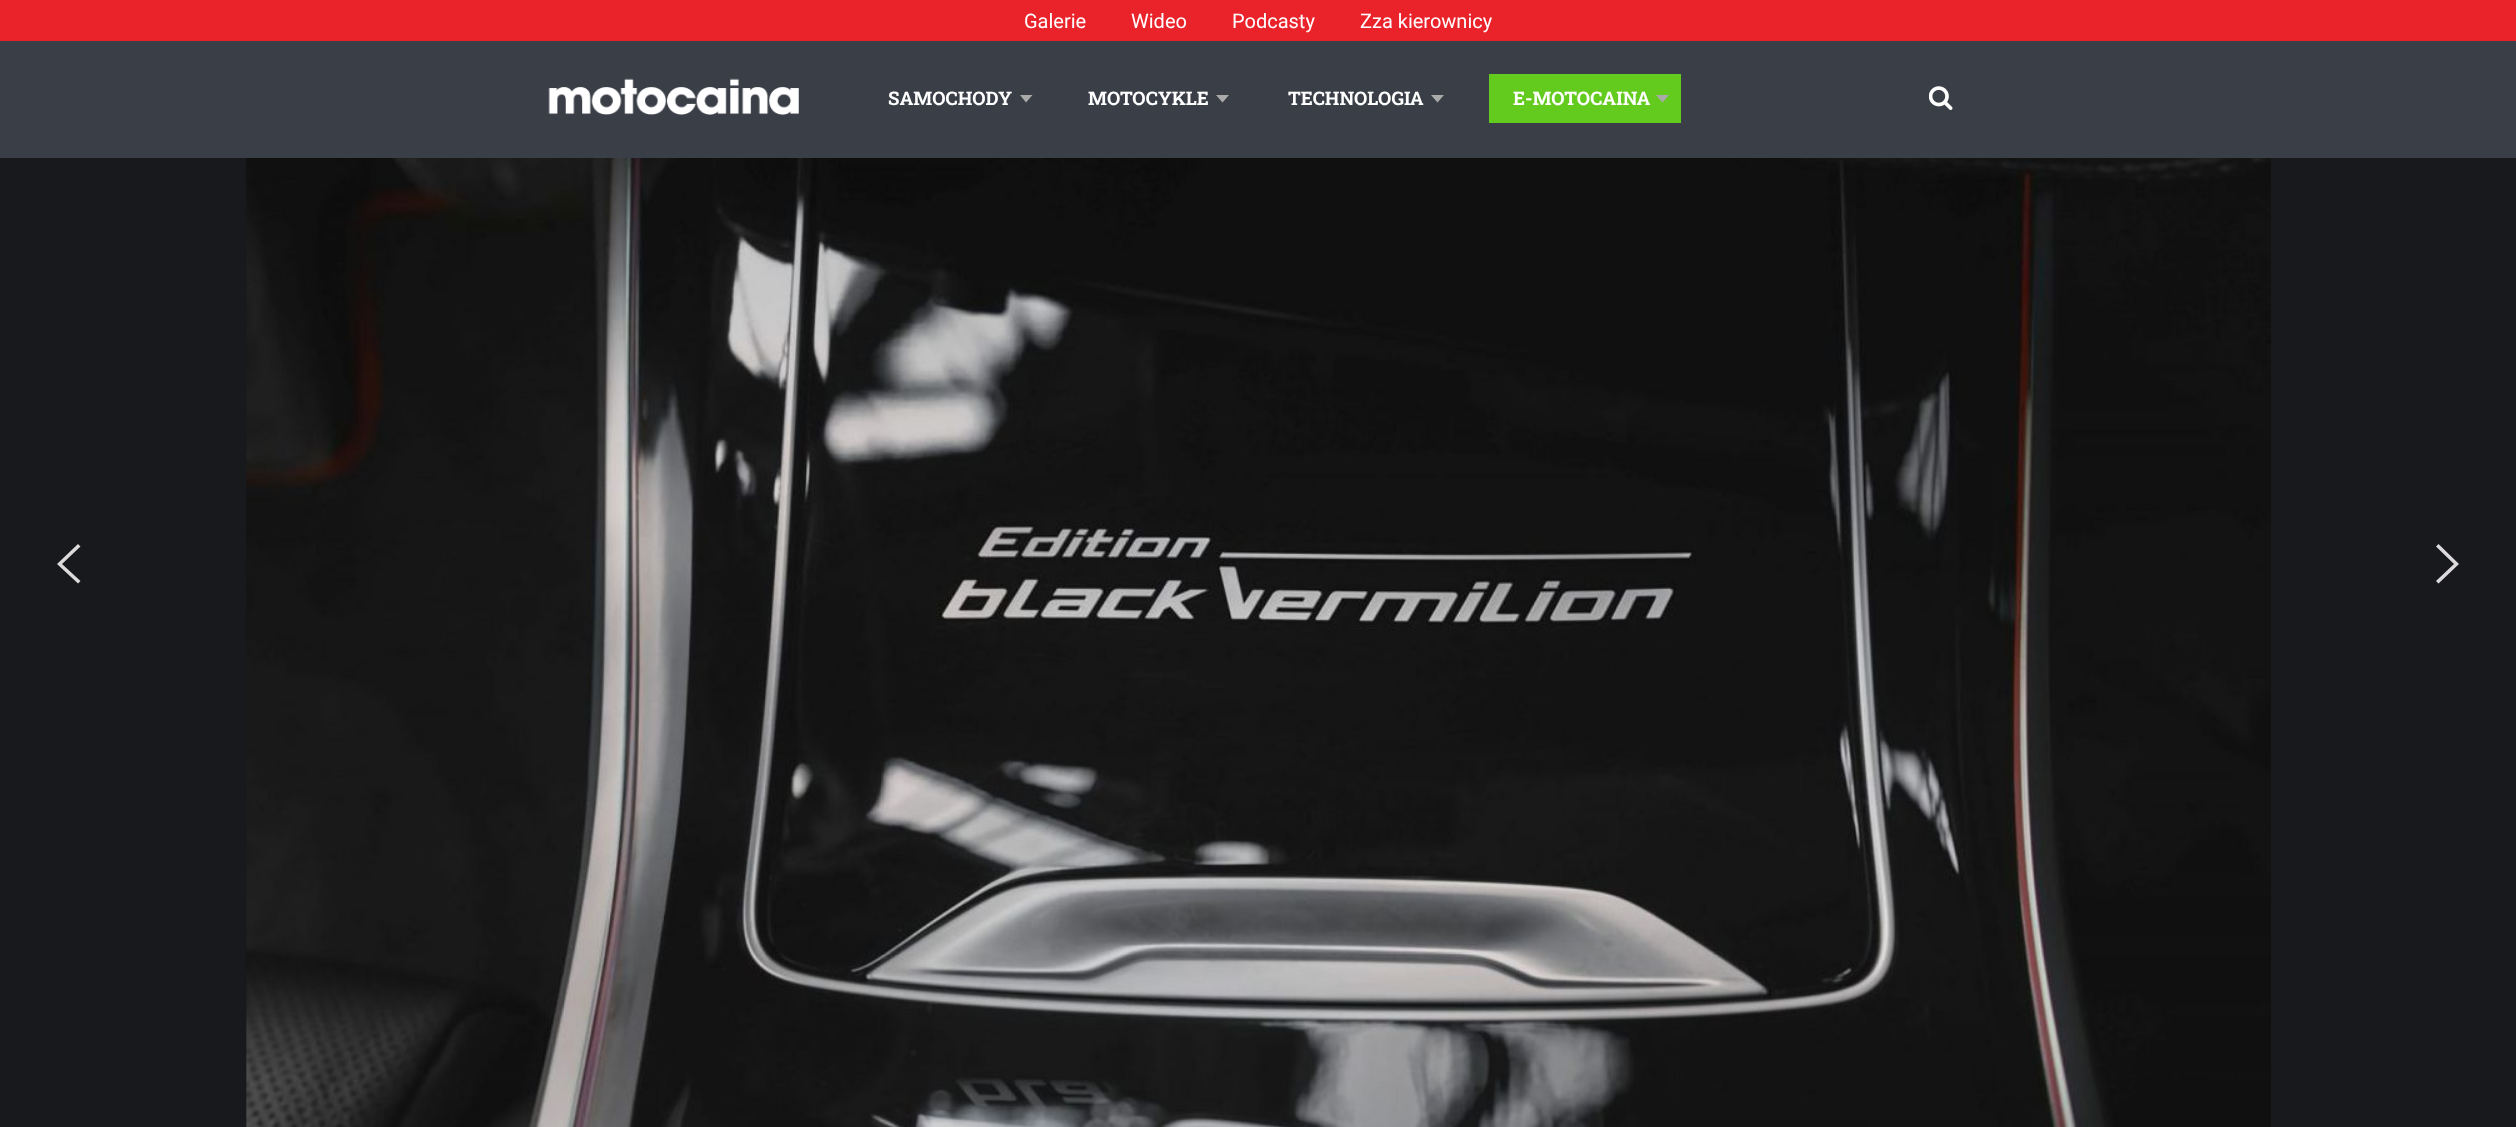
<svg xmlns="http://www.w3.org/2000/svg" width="2516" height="1127">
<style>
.a{font:20px Roboto;fill:#fff}
.b{font:bold 18.75px Roboto Slab;fill:#fff}
</style>
<rect width="100%" height="100%" fill="#17191d"/>
<path fill="#ea222a" d="M0 0h2516v41H0z"/>
<path fill="#3a3f47" d="M0 41h2516v117H0z"/>
<image href="1.png" x="548" y="78" width="251" height="37"/>
<path fill="#aaa" d="M1020 95h12.5l-6.5 7.5z"/>
<path fill="#aaa" d="M1216 95h13l-6.5 7.5z"/>
<path fill="#aaa" d="M1431 95h13l-6.5 7.5z"/>
<path fill="#62cb1d" d="M1489 74h192v49H1489z"/>
<path fill="#aaa" d="M1656 95h13l-6.5 7.5z"/>
<image href="2.png" x="1929" y="86" width="24" height="24"/>
<path fill="#dddadc" fill-rule="evenodd" d="M80.5 546.5l-18.5 17.5l18.5 17l-2.5 2.5l-21-19.5l21-20z"/>
<image href="3.png" x="246" y="158" width="2025" height="969"/>
<path fill="#dddadc" fill-rule="evenodd" d="M2436 546.5l2.5-2.5l20.5 20l-20.5 19.5l-2.5-2.5l18-17z"/>
<text class="a" x="1024" y="28">Galerie</text>
<text class="a" x="1131" y="28">Wideo</text>
<text class="a" x="1232" y="28">Podcasty</text>
<text class="a" x="1360" y="28">Zza kierownicy</text>
<text class="b" x="888" y="105">SAMOCHODY</text>
<text class="b" x="1088" y="105">MOTOCYKLE</text>
<text class="b" x="1288" y="105">TECHNOLOGIA</text>
<text class="b" x="1513" y="105">E-MOTOCAINA</text>
</svg>
